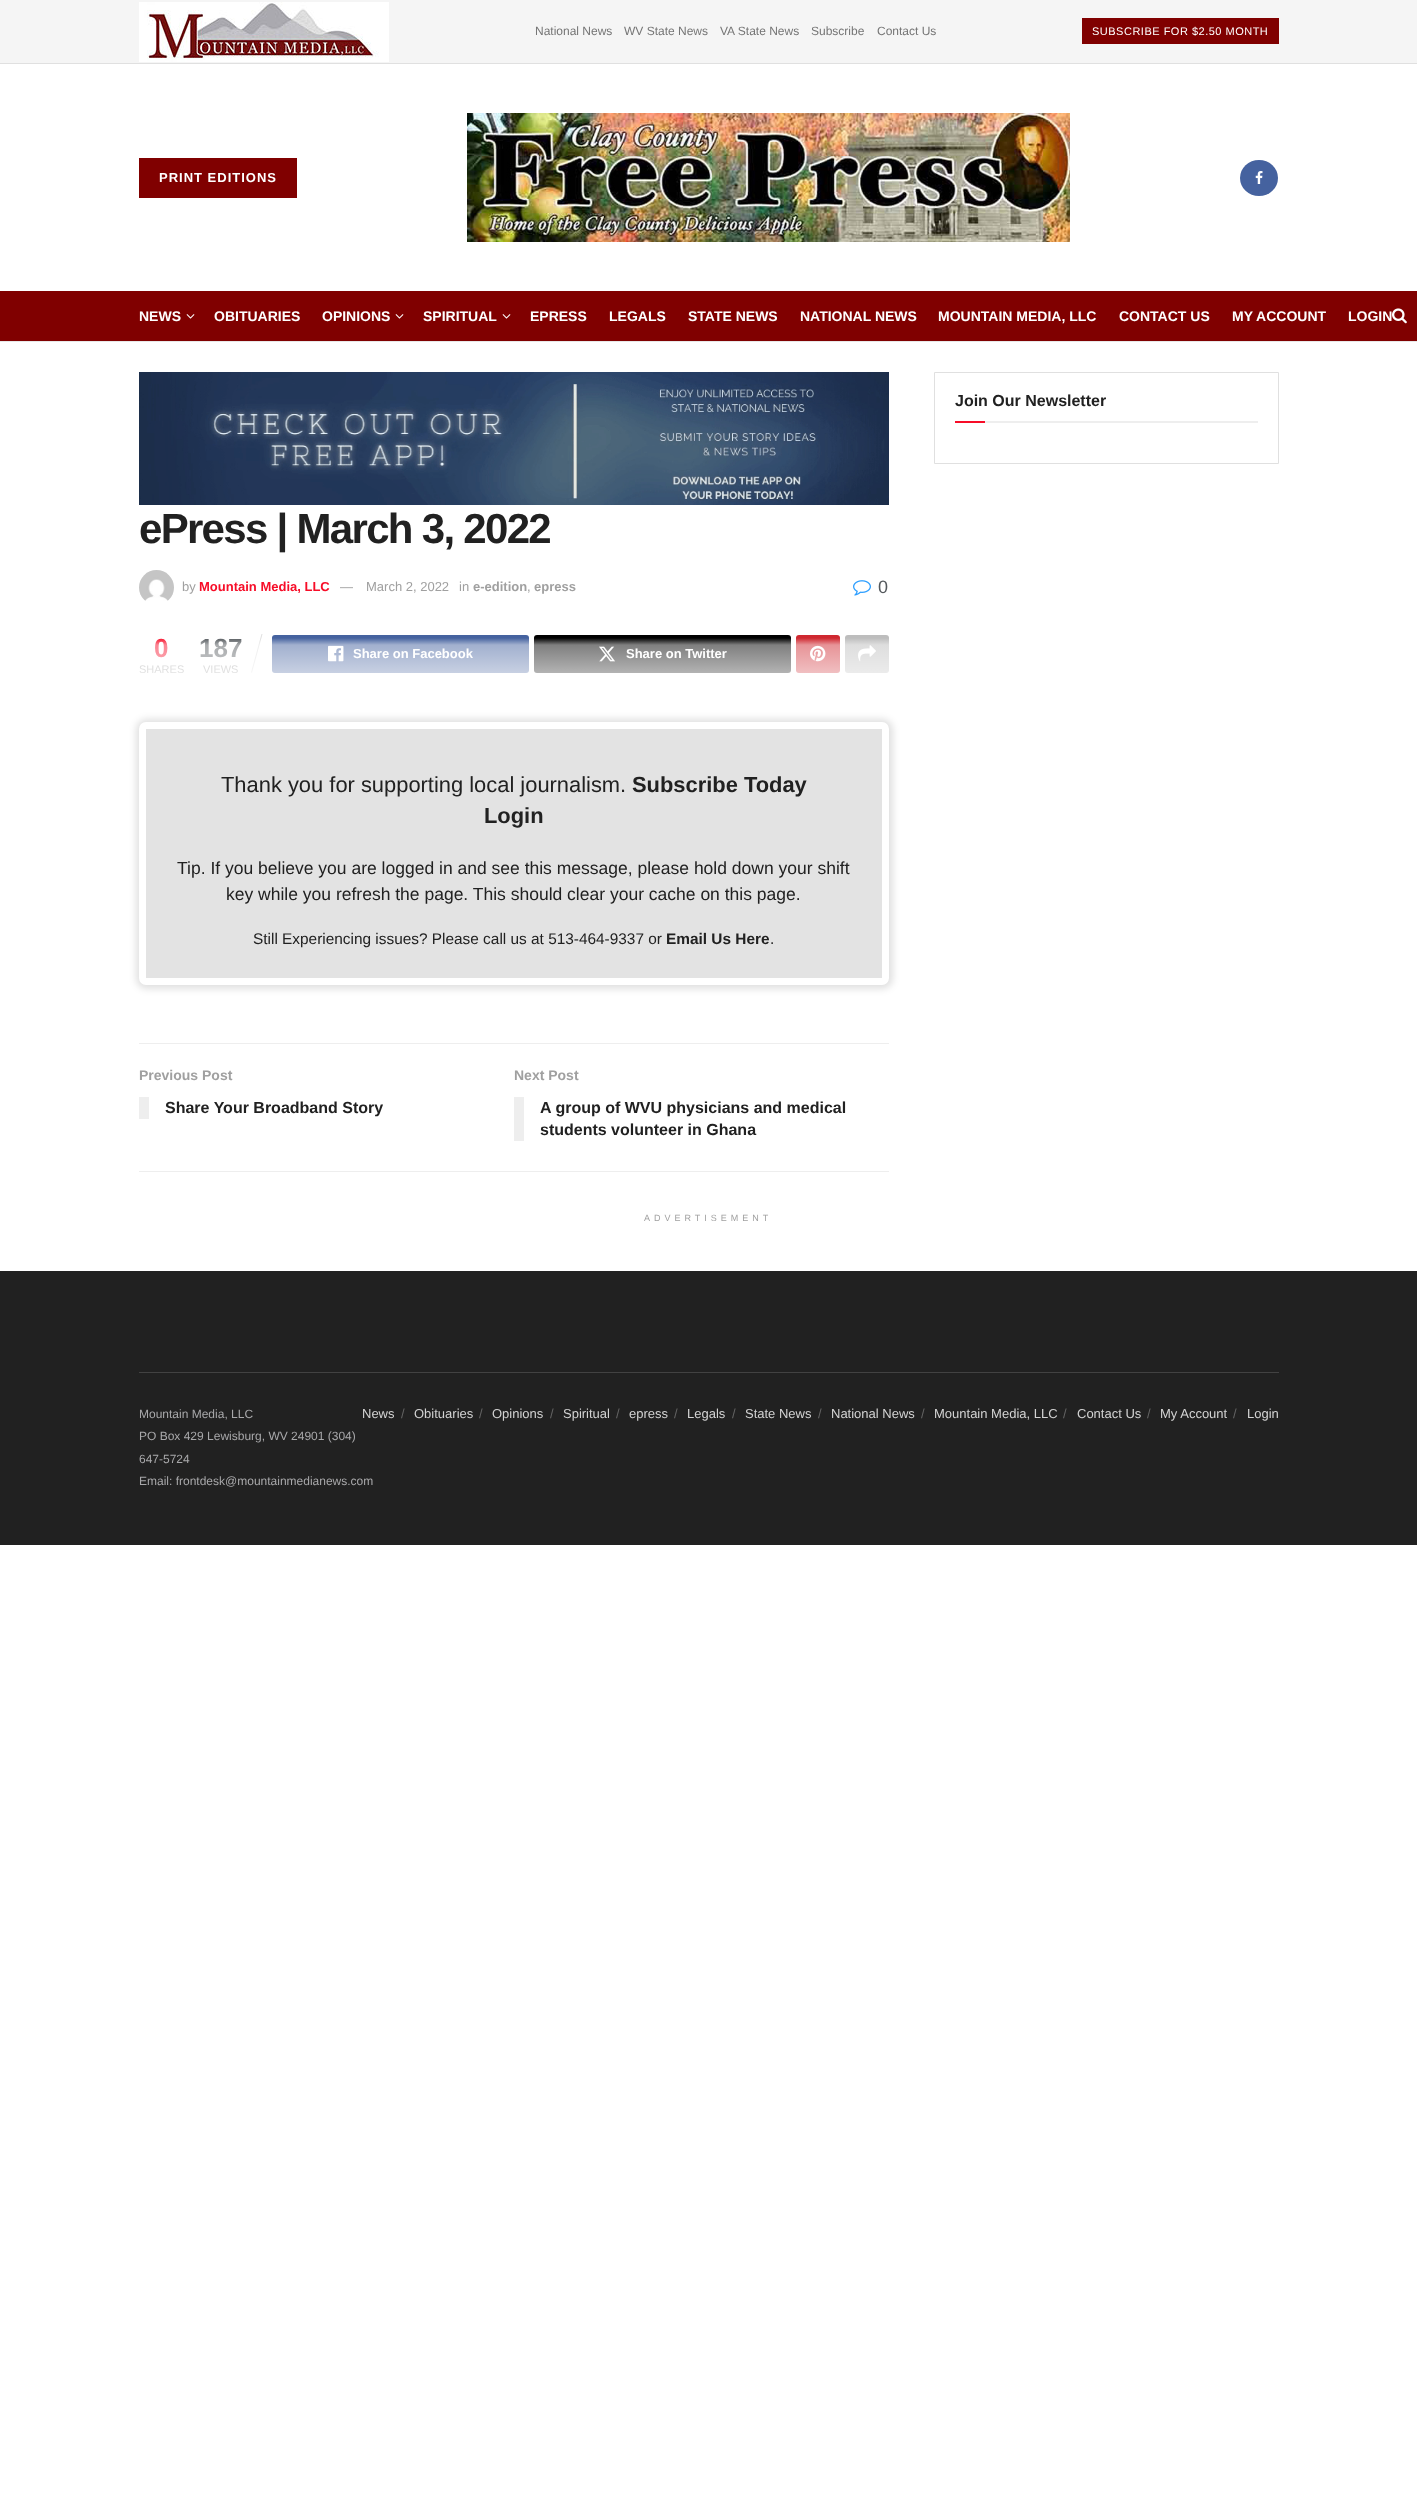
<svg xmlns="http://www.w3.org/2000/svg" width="1417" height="2518">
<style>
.a{font:12px Liberation Sans;fill:#757575}
.b{font:11px Liberation Sans;letter-spacing:0.5px;fill:#fff}
.c{font:bold 13px Liberation Sans;letter-spacing:1px;fill:#fff}
.d{font:bold 14px Liberation Sans;fill:#fff}
.e{font:bold 16px Liberation Sans;fill:#212121}
.f{font:bold 42px Liberation Sans;letter-spacing:-1.7px;fill:#212121}
.g{font:13px Liberation Sans;fill:#a0a0a0}
.h{font:bold 13px Liberation Sans;fill:#f70d28}
.i{font:bold 13px Liberation Sans;fill:#a0a0a0}
.j{font:18px Liberation Sans;fill:#53585c}
.k{font:bold 26px Liberation Sans;fill:#f70d28}
.l{font:11px Liberation Sans;fill:#a0a0a0}
.m{font:bold 26px Liberation Sans;fill:#53585c}
.n{font:bold 13px Liberation Sans;fill:#fff}
.o{font:21.9px Liberation Sans;fill:#212121}
.p{font:bold 21.9px Liberation Sans;fill:#212121}
.q{font:17.5px Liberation Sans;fill:#212121}
.r{font:15.4px Liberation Sans;fill:#212121}
.s{font:bold 15.4px Liberation Sans;fill:#212121}
.t{font:bold 14px Liberation Sans;fill:#a0a0a0}
.u{font:9px Liberation Sans;letter-spacing:4px;fill:#a0a0a0}
.v{font:12px Liberation Sans;fill:#a8a8aa}
.w{font:13px Liberation Sans;fill:#d3d3d3}
.x{font:13px Liberation Sans;fill:#646464}
</style>
<defs>
<linearGradient id="g1" gradientUnits="userSpaceOnUse" x1="514" y1="638" x2="514" y2="985"><stop offset="0" stop-color="#fff" stop-opacity="0"/><stop offset="0.02" stop-color="#fff" stop-opacity="0.5"/><stop offset="0.22" stop-color="#fff"/><stop offset="1" stop-color="#fff"/></linearGradient>
</defs>
<rect width="100%" height="100%" fill="#fff"/>
<path fill="#f5f5f5" d="M0 0h1417v63H0z"/>
<path fill="#e0e0e0" d="M0 63h1417v1H0z"/>
<image href="1.png" x="139" y="2" width="250" height="60"/>
<path fill="#800000" d="M1082 18h197v26H1082z"/>
<path fill="#800000" d="M139 158h158v40H139z"/>
<image href="2.png" x="467" y="113" width="603" height="129"/>
<ellipse fill="#45629f" cx="1259" cy="178" rx="19" ry="18"/>
<image href="3.png" x="1255" y="171" width="8" height="13"/>
<path fill="#800000" d="M0 291h1417v50H0z"/>
<path fill="#e8e8e8" d="M0 341h1417v1H0z"/>
<image href="4.png" x="186" y="314" width="9" height="5"/>
<image href="4.png" x="395" y="314" width="9" height="5"/>
<image href="4.png" x="502" y="314" width="9" height="5"/>
<image href="5.png" x="1392" y="308" width="15" height="16"/>
<path fill="none" stroke="#e0e0e0" d="M934.5 372.5h344v91H934.5z"/>
<path fill="#eee" d="M985 421h273v2H985z"/>
<path fill="#f70d28" d="M955 421h30v2H955z"/>
<image href="6.png" x="139" y="372" width="750" height="133"/>
<image href="7.png" x="139" y="570" width="35" height="31"/>
<image href="8.png" x="853" y="580" width="18" height="16"/>
<path fill="#e0e0e0" d="M261.5 634h1l-10.5 38.5h-1z"/>
<rect fill="#45629f" x="272" y="635" width="257" height="38" rx="3"/>
<image href="9.png" x="328" y="645" width="16" height="17"/>
<rect fill="#000" x="534" y="635" width="257" height="38" rx="3"/>
<image href="10.png" x="599" y="646" width="16" height="16"/>
<rect fill="#cf2830" x="796" y="635" width="44" height="38" rx="3"/>
<image href="11.png" x="810" y="645" width="16" height="17"/>
<rect fill="#bdbdbd" x="845" y="635" width="44" height="38" rx="3"/>
<image href="12.png" x="858" y="645" width="18" height="17"/>
<rect fill="#0000001f" filter="blur(3.5px)" x="136" y="719" width="757" height="270" rx="11"/>
<rect fill="#e3e3e3" stroke="#fff" stroke-width="7" x="142.5" y="725.5" width="743" height="256" rx="3.5"/>
<path fill="#eee" d="M139 1043h750v1H139z"/>
<path fill="#eee" d="M139 1171h750v1H139z"/>
<path fill="#eee" d="M139 1097h10v22H139z"/>
<path fill="#eee" d="M514 1097h10v44H514z"/>
<path fill="#212121" d="M0 1271h1417v274H0z"/>
<path fill="#424242" d="M139 1372h1140v1H139z"/>
<text class="a" x="535" y="35">National News</text>
<text class="a" x="624" y="35">WV State News</text>
<text class="a" x="720" y="35">VA State News</text>
<text class="a" x="811" y="35">Subscribe</text>
<text class="a" x="877" y="35">Contact Us</text>
<text class="b" x="1092" y="35">SUBSCRIBE FOR $2.50 MONTH</text>
<text class="c" x="159" y="182">PRINT EDITIONS</text>
<text class="d" x="139" y="321">NEWS</text>
<text class="d" x="214" y="321">OBITUARIES</text>
<text class="d" x="322" y="321">OPINIONS</text>
<text class="d" x="423" y="321">SPIRITUAL</text>
<text class="d" x="530" y="321">EPRESS</text>
<text class="d" x="609" y="321">LEGALS</text>
<text class="d" x="688" y="321">STATE NEWS</text>
<text class="d" x="800" y="321">NATIONAL NEWS</text>
<text class="d" x="938" y="321">MOUNTAIN MEDIA, LLC</text>
<text class="d" x="1119" y="321">CONTACT US</text>
<text class="d" x="1232" y="321">MY ACCOUNT</text>
<text class="d" x="1348" y="321">LOGIN</text>
<text class="e" x="955" y="406">Join Our Newsletter</text>
<text class="f" x="139" y="543">ePress | March 3, 2022</text>
<text class="g" x="182" y="591">by</text>
<text class="h" x="199" y="591">Mountain Media, LLC</text>
<text class="g" x="340" y="591">—</text>
<text class="g" x="366" y="591">March 2, 2022</text>
<text class="g" x="459" y="591">in</text>
<text class="i" x="473" y="591">e-edition</text>
<text class="g" x="527" y="591">,</text>
<text class="i" x="534" y="591">epress</text>
<text class="j" x="878" y="593">0</text>
<text class="k" x="154" y="657">0</text>
<text class="l" x="139" y="673">SHARES</text>
<text class="m" x="199" y="657">187</text>
<text class="l" x="203" y="673">VIEWS</text>
<text class="n" x="353" y="658">Share on Facebook</text>
<text class="n" x="626" y="658">Share on Twitter</text>
<path fill="url(#g1)" d="M139 638h750v36H139z"/>
<text class="o" x="221" y="792">Thank you for supporting local journalism.</text>
<text class="p" x="632" y="792">Subscribe Today</text>
<text class="p" x="484" y="823">Login</text>
<text class="q" x="177" y="874">Tip. If you believe you are logged in and see this message, please hold down your shift</text>
<text class="q" x="226" y="900">key while you refresh the page. This should clear your cache on this page.</text>
<text class="r" x="253" y="944">Still Experiencing issues? Please call us at 513-464-9337 or</text>
<text class="s" x="666" y="944">Email Us Here</text>
<text class="r" x="770" y="944">.</text>
<text class="t" x="139" y="1080">Previous Post</text>
<text class="e" x="165" y="1113">Share Your Broadband Story</text>
<text class="t" x="514" y="1080">Next Post</text>
<text class="e" x="540" y="1113">A group of WVU physicians and medical</text>
<text class="e" x="540" y="1135">students volunteer in Ghana</text>
<text class="u" x="644" y="1221">ADVERTISEMENT</text>
<text class="v" x="139" y="1418">Mountain Media, LLC</text>
<text class="v" x="139" y="1440">PO Box 429 Lewisburg, WV 24901 (304)</text>
<text class="v" x="139" y="1463">647-5724</text>
<text class="v" x="139" y="1485">Email: frontdesk@mountainmedianews.com</text>
<text class="w" x="362" y="1418">News</text>
<text class="x" x="401" y="1418">/</text>
<text class="w" x="414" y="1418">Obituaries</text>
<text class="x" x="479" y="1418">/</text>
<text class="w" x="492" y="1418">Opinions</text>
<text class="x" x="550" y="1418">/</text>
<text class="w" x="563" y="1418">Spiritual</text>
<text class="x" x="616" y="1418">/</text>
<text class="w" x="629" y="1418">epress</text>
<text class="x" x="674" y="1418">/</text>
<text class="w" x="687" y="1418">Legals</text>
<text class="x" x="732" y="1418">/</text>
<text class="w" x="745" y="1418">State News</text>
<text class="x" x="818" y="1418">/</text>
<text class="w" x="831" y="1418">National News</text>
<text class="x" x="921" y="1418">/</text>
<text class="w" x="934" y="1418">Mountain Media, LLC</text>
<text class="x" x="1063" y="1418">/</text>
<text class="w" x="1077" y="1418">Contact Us</text>
<text class="x" x="1147" y="1418">/</text>
<text class="w" x="1160" y="1418">My Account</text>
<text class="x" x="1233" y="1418">/</text>
<text class="w" x="1247" y="1418">Login</text>
</svg>
